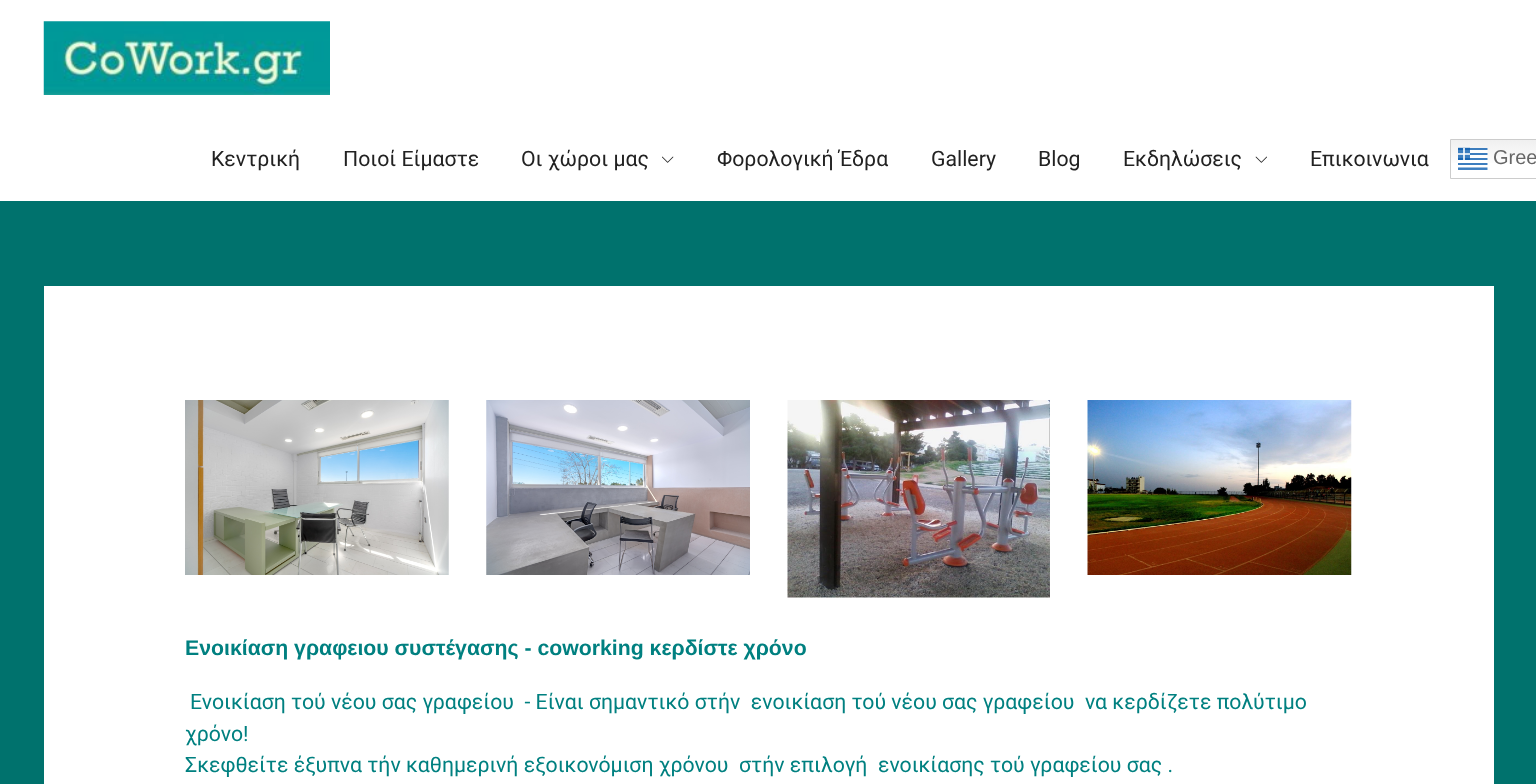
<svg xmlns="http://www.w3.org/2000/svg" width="1536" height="784">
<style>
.a{font:21.25px Roboto;fill:#222}
.b{font:20px Liberation Sans;fill:#666}
.c{font:bold 21.25px Liberation Sans;fill:#008080}
.d{font:21.25px Roboto;fill:#008080}
</style>
<defs>
<linearGradient id="g1" gradientUnits="userSpaceOnUse" x1="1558" y1="139" x2="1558" y2="179"><stop offset="0" stop-color="#efefef"/><stop offset="0.7" stop-color="#fff"/></linearGradient>
</defs>
<rect width="100%" height="100%" fill="#00726d"/>
<path fill="#fff" d="M0 0h1536v201H0z"/>
<image href="1.png" x="43" y="21" width="287" height="74"/>
<image href="2.png" x="662" y="156" width="12" height="7"/>
<image href="3.png" x="1255" y="156" width="12" height="7"/>
<path fill="url(#g1)" d="M1451 140h85v23H1451z"/>
<path fill="none" stroke="#ccc" d="M1450.5 139.5h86v39H1450.5z"/>
<image href="4.png" x="1458" y="147" width="30" height="23"/>
<path fill="#fff" d="M44 286h1450v498H44z"/>
<image href="5.png" x="185" y="400" width="264" height="175"/>
<image href="6.png" x="486" y="400" width="264" height="175"/>
<image href="7.png" x="787" y="400" width="263" height="198"/>
<image href="8.png" x="1087" y="400" width="265" height="175"/>
<text class="a" x="211" y="166">Κεντρική</text>
<text class="a" x="343" y="166">Ποιοί Είμαστε</text>
<text class="a" x="521" y="166">Oι χώροι μας</text>
<text class="a" x="717" y="166">Φορολογική Έδρα</text>
<text class="a" x="931" y="166">Gallery</text>
<text class="a" x="1038" y="166">Blog</text>
<text class="a" x="1123" y="166">Eκδηλώσεις</text>
<text class="a" x="1310" y="166">Επικοινωνια</text>
<text class="b" x="1493" y="164">Gree</text>
<text class="c" x="185" y="655">Ενοικίαση γραφειου συστέγασης - coworking κερδίστε χρόνο</text>
<text class="d" xml:space="preserve" x="190" y="709">Ενοικίαση τού νέου σας γραφείου  - Είναι σημαντικό στήν  ενοικίαση τού νέου σας γραφείου  να κερδίζετε πολύτιμο</text>
<text class="d" x="185" y="741">χρόνο!</text>
<text class="d" xml:space="preserve" x="185" y="772">Σκεφθείτε έξυπνα τήν καθημερινή εξοικονόμιση χρόνου  στήν επιλογή  ενοικίασης τού γραφείου σας .</text>
</svg>
